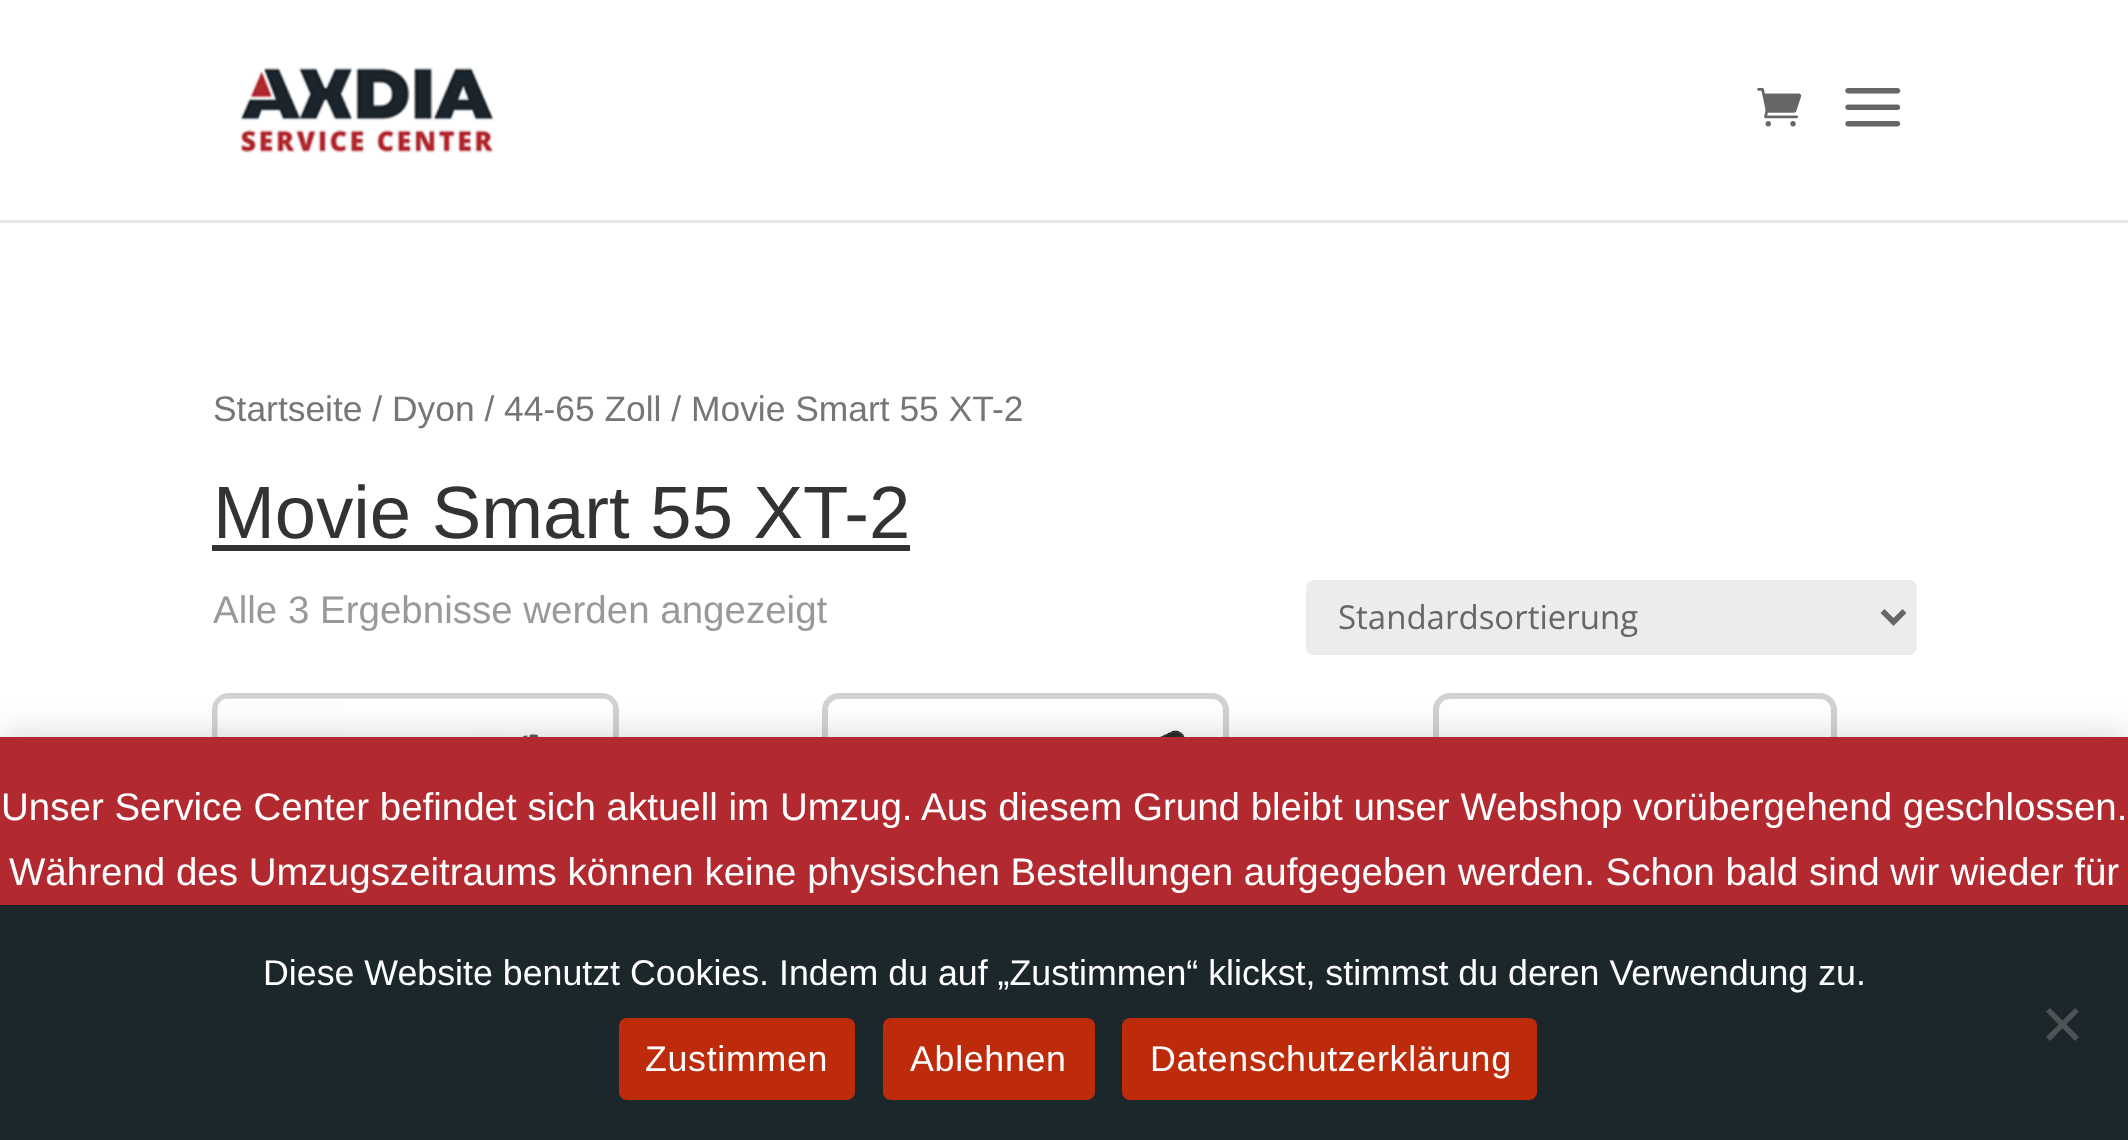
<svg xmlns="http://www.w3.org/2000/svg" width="2128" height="1140">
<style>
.a{font:35.4px Liberation Sans;fill:#767676}
.b{font:74.25px Liberation Sans;fill:#333}
.c{font:38.5px Liberation Sans;fill:#999}
.d{font:33px Open Sans;fill:#666}
.e{font:38.5px Liberation Sans;fill:#fff}
.f{font:35.75px Liberation Sans;fill:#fff}
.g{font:35.75px Liberation Sans;letter-spacing:0.7px;fill:#fff}
</style>
<rect width="100%" height="100%" fill="#fff"/>
<path fill="#e6e6e6" d="M0 220v3h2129v-220h-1v217z"/>
<image href="1.png" x="240" y="67" width="254" height="86"/>
<image href="2.png" x="1757" y="88" width="45" height="39"/>
<image href="3.png" x="1845" y="88" width="56" height="39"/>
<path fill="#333" d="M212 545h698v6H212z"/>
<rect fill="#ececec" x="1306" y="580" width="611" height="75" rx="8"/>
<path fill="none" stroke="#666" stroke-width="5.5" d="M1882.5 611l11 11l11-11"/>
<rect fill="none" stroke="#d2d2d2" stroke-width="6" x="215" y="696" width="401" height="299" rx="14"/>
<image href="4.png" x="217" y="698" width="396" height="39"/>
<rect fill="none" stroke="#d2d2d2" stroke-width="6" x="825" y="696" width="401" height="299" rx="14"/>
<image href="5.png" x="1160" y="730" width="25" height="7"/>
<rect fill="none" stroke="#d2d2d2" stroke-width="6" x="1436" y="696" width="398" height="299" rx="14"/>
<path fill="#00000033" filter="blur(19px)" d="M0 740h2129v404H0z"/>
<path fill="#b22930" d="M0 737h2128v168H0z"/>
<path fill="#1c272c" d="M0 905h2128v235H0z"/>
<path fill="#4e5456" d="M2075 1008l4 3.5l-29 29.5l-4-4z"/>
<path fill="#4e5456" d="M2046 1011.5l4-3.5l29 29l-4 4z"/>
<rect fill="#bd2b0b" x="619" y="1018" width="236" height="82" rx="8"/>
<rect fill="#bd2b0b" x="883" y="1018" width="212" height="82" rx="8"/>
<rect fill="#bd2b0b" x="1122" y="1018" width="415" height="82" rx="8"/>
<text class="a" x="213" y="421">Startseite / Dyon / 44-65 Zoll / Movie Smart 55 XT-2</text>
<text class="b" x="213" y="538">Movie Smart 55 XT-2</text>
<text class="c" x="213" y="623">Alle 3 Ergebnisse werden angezeigt</text>
<text class="d" x="1338" y="629">Standardsortierung</text>
<text class="e" x="1" y="820">Unser Service Center befindet sich aktuell im Umzug. Aus diesem Grund bleibt unser Webshop vorübergehend geschlossen.</text>
<text class="e" x="9" y="885">Während des Umzugszeitraums können keine physischen Bestellungen aufgegeben werden. Schon bald sind wir wieder für</text>
<text class="f" x="263" y="985">Diese Website benutzt Cookies. Indem du auf „Zustimmen“ klickst, stimmst du deren Verwendung zu.</text>
<text class="g" x="645" y="1071">Zustimmen</text>
<text class="g" x="910" y="1071">Ablehnen</text>
<text class="g" x="1150" y="1071">Datenschutzerklärung</text>
</svg>
